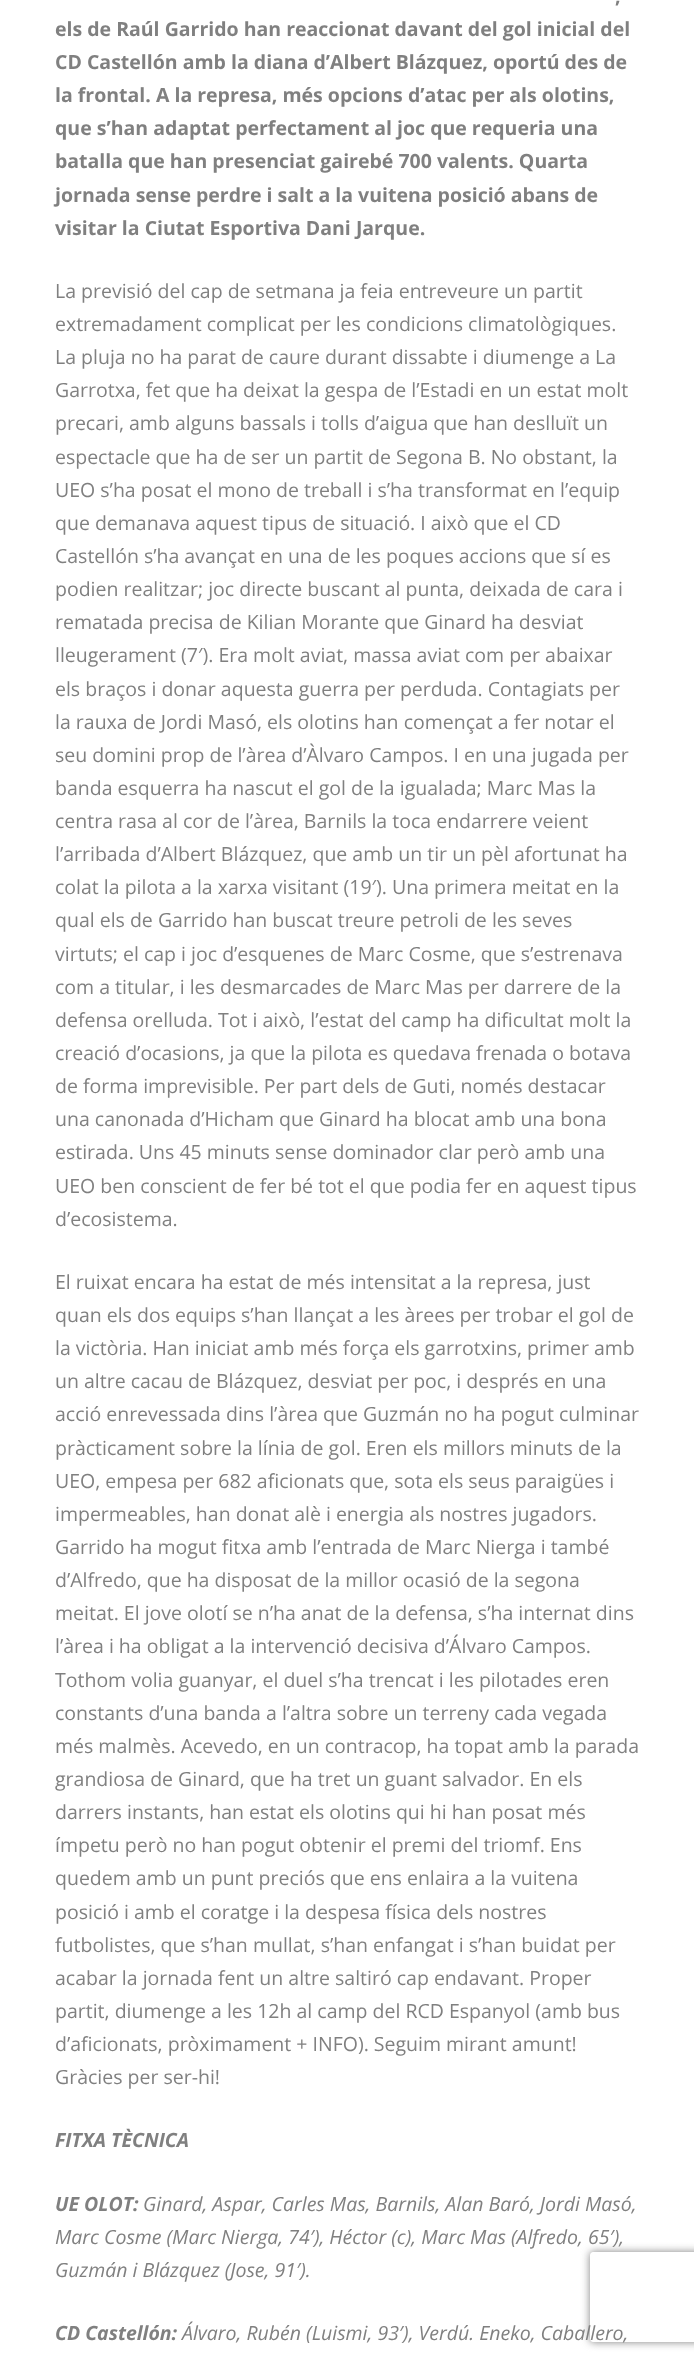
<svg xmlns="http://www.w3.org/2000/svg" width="694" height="2362">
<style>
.a{font:bold 19.5px Open Sans;fill:#808080}
.b{font:19.5px Open Sans;fill:#808080}
.c{font:italic bold 19.5px Open Sans;fill:#808080}
.d{font:italic 19.5px Open Sans;fill:#808080}
</style>
<defs>
<clipPath id="clip1"><path d="M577 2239h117v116h-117zm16 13h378c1.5 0 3 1.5 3 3v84c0 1.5-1.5 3-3 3h-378c-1.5 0-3-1.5-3-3v-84c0-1.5 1.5-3 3-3z" clip-rule="evenodd"/></clipPath>
</defs>
<rect width="100%" height="100%" fill="#fff"/>
<g clip-path="url(#clip1)">
<rect fill="#808080" filter="blur(4px)" x="590" y="2252" width="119" height="90" rx="3"/>
</g>
<text class="a" x="615" y="3">,</text>
<text class="a" x="55" y="36">els de Raúl Garrido han reaccionat davant del gol inicial del</text>
<text class="a" x="55" y="69">CD Castellón amb la diana d’Albert Blázquez, oportú des de</text>
<text class="a" x="55" y="102">la frontal. A la represa, més opcions d’atac per als olotins,</text>
<text class="a" x="55" y="135">que s’han adaptat perfectament al joc que requeria una</text>
<text class="a" x="55" y="168">batalla que han presenciat gairebé 700 valents. Quarta</text>
<text class="a" x="55" y="202">jornada sense perdre i salt a la vuitena posició abans de</text>
<text class="a" x="55" y="235">visitar la Ciutat Esportiva Dani Jarque.</text>
<text class="b" x="55" y="298">La previsió del cap de setmana ja feia entreveure un partit</text>
<text class="b" x="55" y="331">extremadament complicat per les condicions climatològiques.</text>
<text class="b" x="55" y="364">La pluja no ha parat de caure durant dissabte i diumenge a La</text>
<text class="b" x="55" y="397">Garrotxa, fet que ha deixat la gespa de l’Estadi en un estat molt</text>
<text class="b" x="55" y="430">precari, amb alguns bassals i tolls d’aigua que han deslluït un</text>
<text class="b" x="55" y="464">espectacle que ha de ser un partit de Segona B. No obstant, la</text>
<text class="b" x="55" y="497">UEO s’ha posat el mono de treball i s’ha transformat en l’equip</text>
<text class="b" x="55" y="530">que demanava aquest tipus de situació. I això que el CD</text>
<text class="b" x="55" y="563">Castellón s’ha avançat en una de les poques accions que sí es</text>
<text class="b" x="55" y="596">podien realitzar; joc directe buscant al punta, deixada de cara i</text>
<text class="b" x="55" y="629">rematada precisa de Kilian Morante que Ginard ha desviat</text>
<text class="b" x="55" y="662">lleugerament (7′). Era molt aviat, massa aviat com per abaixar</text>
<text class="b" x="55" y="696">els braços i donar aquesta guerra per perduda. Contagiats per</text>
<text class="b" x="55" y="729">la rauxa de Jordi Masó, els olotins han començat a fer notar el</text>
<text class="b" x="55" y="762">seu domini prop de l’àrea d’Àlvaro Campos. I en una jugada per</text>
<text class="b" x="55" y="795">banda esquerra ha nascut el gol de la igualada; Marc Mas la</text>
<text class="b" x="55" y="828">centra rasa al cor de l’àrea, Barnils la toca endarrere veient</text>
<text class="b" x="55" y="861">l’arribada d’Albert Blázquez, que amb un tir un pèl afortunat ha</text>
<text class="b" x="55" y="894">colat la pilota a la xarxa visitant (19′). Una primera meitat en la</text>
<text class="b" x="55" y="927">qual els de Garrido han buscat treure petroli de les seves</text>
<text class="b" x="55" y="961">virtuts; el cap i joc d’esquenes de Marc Cosme, que s’estrenava</text>
<text class="b" x="55" y="994">com a titular, i les desmarcades de Marc Mas per darrere de la</text>
<text class="b" x="55" y="1027">defensa orelluda. Tot i això, l’estat del camp ha dificultat molt la</text>
<text class="b" x="55" y="1060">creació d’ocasions, ja que la pilota es quedava frenada o botava</text>
<text class="b" x="55" y="1093">de forma imprevisible. Per part dels de Guti, només destacar</text>
<text class="b" x="55" y="1126">una canonada d’Hicham que Ginard ha blocat amb una bona</text>
<text class="b" x="55" y="1159">estirada. Uns 45 minuts sense dominador clar però amb una</text>
<text class="b" x="55" y="1193">UEO ben conscient de fer bé tot el que podia fer en aquest tipus</text>
<text class="b" x="55" y="1226">d’ecosistema.</text>
<text class="b" x="55" y="1289">El ruixat encara ha estat de més intensitat a la represa, just</text>
<text class="b" x="55" y="1322">quan els dos equips s’han llançat a les àrees per trobar el gol de</text>
<text class="b" x="55" y="1355">la victòria. Han iniciat amb més força els garrotxins, primer amb</text>
<text class="b" x="55" y="1388">un altre cacau de Blázquez, desviat per poc, i després en una</text>
<text class="b" x="55" y="1421">acció enrevessada dins l’àrea que Guzmán no ha pogut culminar</text>
<text class="b" x="55" y="1455">pràcticament sobre la línia de gol. Eren els millors minuts de la</text>
<text class="b" x="55" y="1488">UEO, empesa per 682 aficionats que, sota els seus paraigües i</text>
<text class="b" x="55" y="1521">impermeables, han donat alè i energia als nostres jugadors.</text>
<text class="b" x="55" y="1554">Garrido ha mogut fitxa amb l’entrada de Marc Nierga i també</text>
<text class="b" x="55" y="1587">d’Alfredo, que ha disposat de la millor ocasió de la segona</text>
<text class="b" x="55" y="1620">meitat. El jove olotí se n’ha anat de la defensa, s’ha internat dins</text>
<text class="b" x="55" y="1653">l’àrea i ha obligat a la intervenció decisiva d’Álvaro Campos.</text>
<text class="b" x="55" y="1687">Tothom volia guanyar, el duel s’ha trencat i les pilotades eren</text>
<text class="b" x="55" y="1720">constants d’una banda a l’altra sobre un terreny cada vegada</text>
<text class="b" x="55" y="1753">més malmès. Acevedo, en un contracop, ha topat amb la parada</text>
<text class="b" x="55" y="1786">grandiosa de Ginard, que ha tret un guant salvador. En els</text>
<text class="b" x="55" y="1819">darrers instants, han estat els olotins qui hi han posat més</text>
<text class="b" x="55" y="1852">ímpetu però no han pogut obtenir el premi del triomf. Ens</text>
<text class="b" x="55" y="1885">quedem amb un punt preciós que ens enlaira a la vuitena</text>
<text class="b" x="55" y="1919">posició i amb el coratge i la despesa física dels nostres</text>
<text class="b" x="55" y="1952">futbolistes, que s’han mullat, s’han enfangat i s’han buidat per</text>
<text class="b" x="55" y="1985">acabar la jornada fent un altre saltiró cap endavant. Proper</text>
<text class="b" x="55" y="2018">partit, diumenge a les 12h al camp del RCD Espanyol (amb bus</text>
<text class="b" x="55" y="2051">d’aficionats, pròximament + INFO). Seguim mirant amunt!</text>
<text class="b" x="55" y="2084">Gràcies per ser-hi!</text>
<text class="c" x="55" y="2147">FITXA TÈCNICA</text>
<text class="c" x="55" y="2211">UE OLOT:</text>
<text class="d" x="143" y="2211">Ginard, Aspar, Carles Mas, Barnils, Alan Baró, Jordi Masó,</text>
<text class="d" x="55" y="2244">Marc Cosme (Marc Nierga, 74′), Héctor (c), Marc Mas (Alfredo, 65′),</text>
<text class="d" x="55" y="2277">Guzmán i Blázquez (Jose, 91′).</text>
<text class="c" x="55" y="2340">CD Castellón:</text>
<text class="d" x="182" y="2340">Álvaro, Rubén (Luismi, 93′), Verdú. Eneko, Caballero,</text>
</svg>
